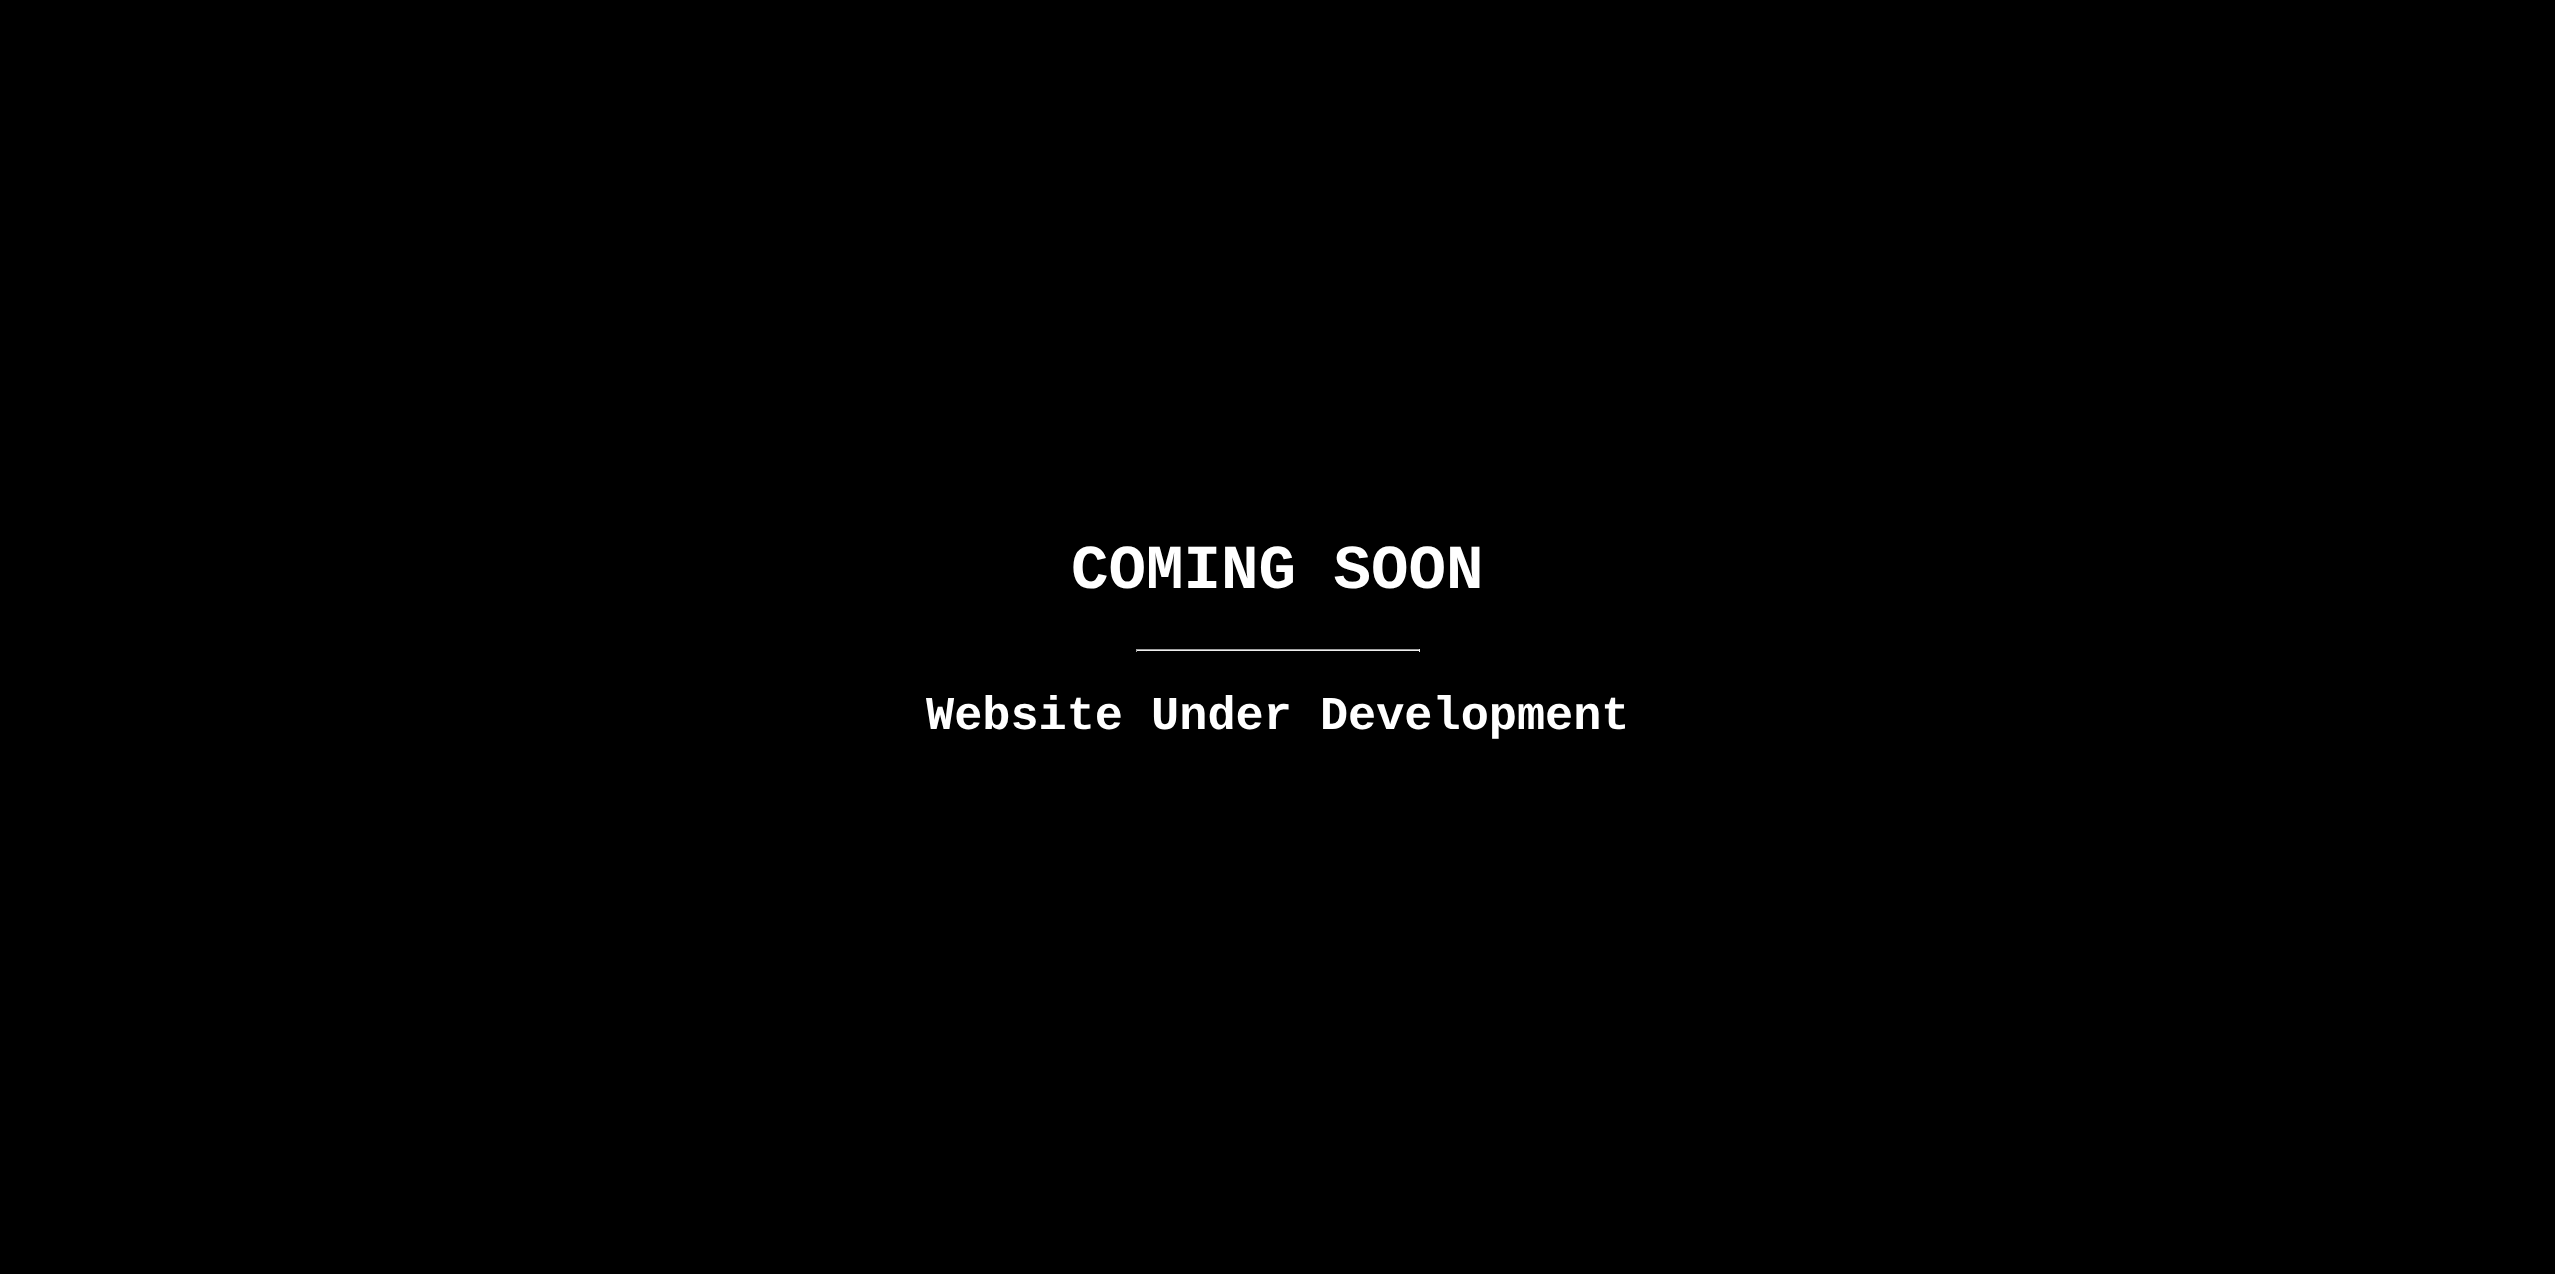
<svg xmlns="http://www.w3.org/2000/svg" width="2555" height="1274">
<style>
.a{font:bold 62.5px Liberation Mono;fill:#fff}
.b{font:bold 46.9px Liberation Mono;fill:#fff}
</style>
<rect width="100%" height="100%" fill="#000"/>
<path fill="#9f9f9f" d="M1136 649h284v1H1136z"/>
<path fill="#eee" d="M1419 649h1v3H1419z"/>
<path fill="#eee" d="M1136 650h284v1H1136z"/>
<path fill="#9f9f9f" d="M1136 649h1v3H1136z"/>
<text class="a" x="1071" y="588">COMING SOON</text>
<text class="b" x="926" y="729">Website Under Development</text>
</svg>
